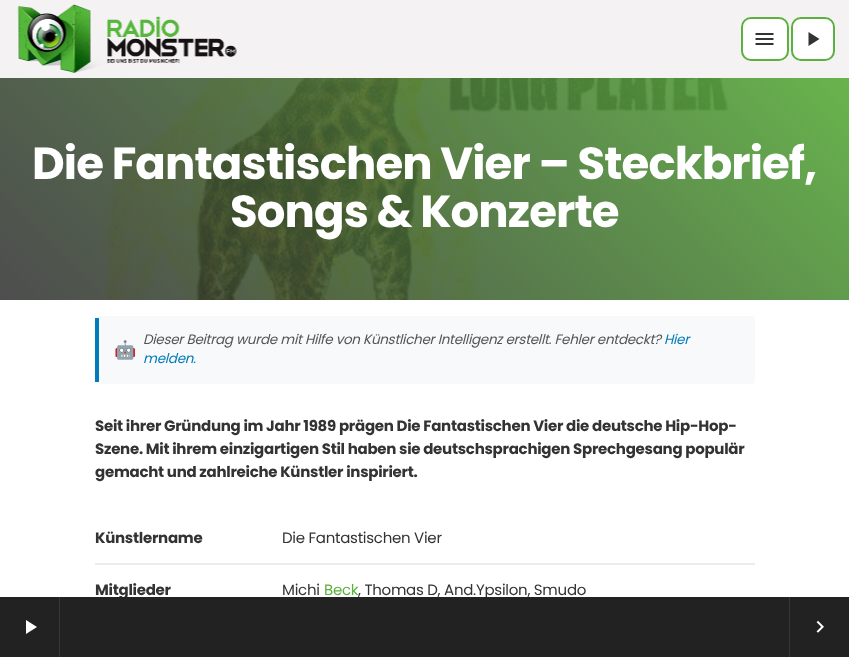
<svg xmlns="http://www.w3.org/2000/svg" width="849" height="657">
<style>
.a{font:bold 45px Poppins;letter-spacing:-0.9px;fill:#fff}
.b{font:18px Noto Color Emoji;letter-spacing:-0.27px;fill:#555}
.c{font:italic 13.5px Poppins;letter-spacing:-0.27px;fill:#555}
.d{font:italic 13.5px Poppins;letter-spacing:-0.27px;fill:#007cba}
.e{font:bold 15px Poppins;letter-spacing:-0.27px;fill:#333}
.f{font:15px Poppins;letter-spacing:-0.27px;fill:#333}
.g{font:15px Poppins;letter-spacing:-0.27px;fill:#5cb13e}
</style>
<defs>
<linearGradient id="g1" gradientUnits="userSpaceOnUse" x1="157" y1="457" x2="693" y2="-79"><stop offset="0" stop-color="#1f1f1f" stop-opacity="0.75"/><stop offset="1" stop-color="#5cb03e" stop-opacity="0.9"/></linearGradient>
</defs>
<rect width="100%" height="100%" fill="#fff"/>
<path fill="#f4f2f2" d="M0 0h849v78H0z"/>
<image href="1.png" x="17" y="4" width="220" height="69"/>
<rect fill="#fff" stroke="#5cb13e" stroke-width="2" x="742" y="18" width="46" height="42" rx="9"/>
<image href="2.png" x="755" y="33" width="19" height="12"/>
<rect fill="#fff" stroke="#5cb13e" stroke-width="2" x="792" y="18" width="42" height="42" rx="9"/>
<path fill="#333" d="M808.5 32l11 7l-11 7z"/>
<image href="3.png" x="0" y="78" width="849" height="222"/>
<path fill="url(#g1)" d="M0 78h849v222H0z"/>
<rect fill="#f8f9fa" x="95" y="316" width="660" height="68" rx="4"/>
<path fill="#007cba" d="M95 318h4v64H95z"/>
<path fill="#ebebeb" d="M95 563h660v2H95z"/>
<text class="a" x="32" y="179">Die Fantastischen Vier – Steckbrief,</text>
<text class="a" x="230" y="227">Songs &amp; Konzerte</text>
<text class="b" x="114" y="356">🤖</text>
<text class="c" x="143" y="344">Dieser Beitrag wurde mit Hilfe von Künstlicher Intelligenz erstellt. Fehler entdeckt?</text>
<text class="d" x="664" y="344">Hier</text>
<text class="d" x="143" y="363">melden.</text>
<text class="e" x="95" y="431">Seit ihrer Gründung im Jahr 1989 prägen Die Fantastischen Vier die deutsche Hip-Hop-</text>
<text class="e" x="95" y="454">Szene. Mit ihrem einzigartigen Stil haben sie deutschsprachigen Sprechgesang populär</text>
<text class="e" x="95" y="477">gemacht und zahlreiche Künstler inspiriert.</text>
<text class="e" x="95" y="543">Künstlername</text>
<text class="f" x="282" y="543">Die Fantastischen Vier</text>
<text class="e" x="95" y="595">Mitglieder</text>
<text class="f" x="282" y="595">Michi</text>
<text class="g" x="324" y="595">Beck</text>
<text class="f" x="358" y="595">, Thomas D, And.Ypsilon, Smudo</text>
<path fill="#222" d="M0 597h849v60H0z"/>
<path fill="#363636" d="M59 597h1v60H59z"/>
<path fill="#fff" d="M26 620l11 7l-11 7z"/>
<path fill="#363636" d="M789 597h1v60H789z"/>
<image href="4.png" x="816" y="620" width="8" height="13"/>
</svg>
